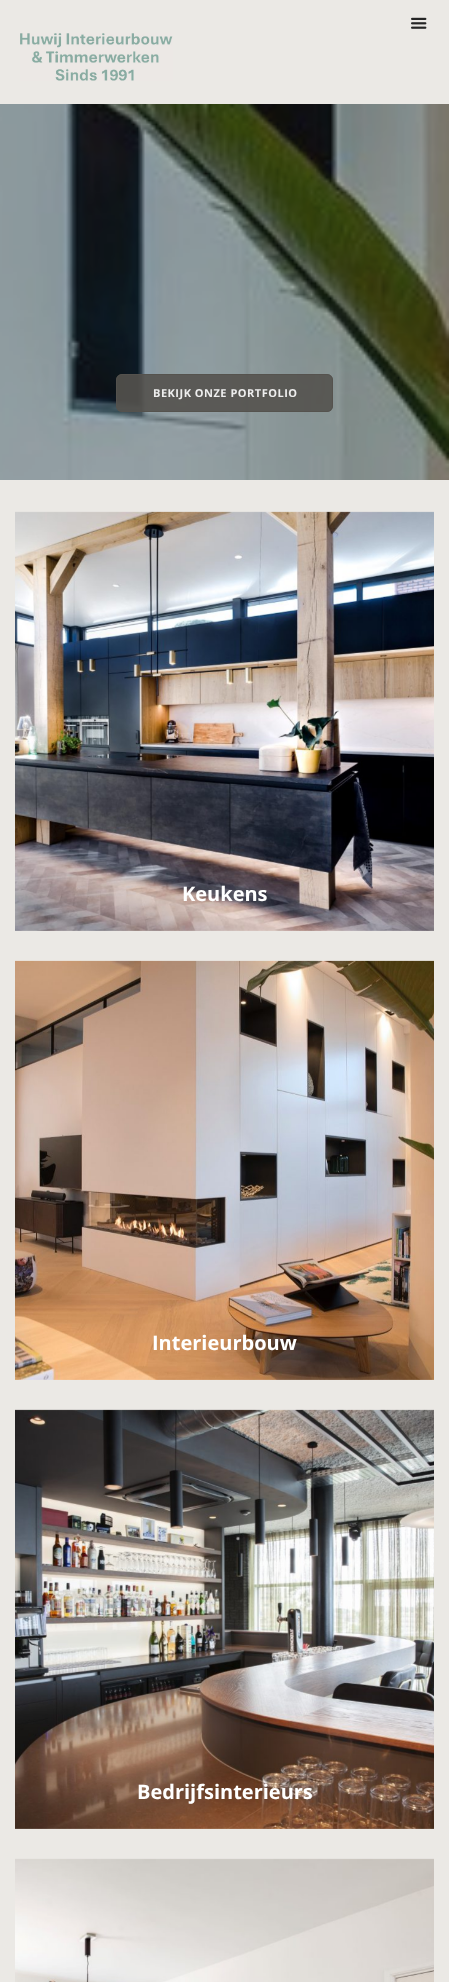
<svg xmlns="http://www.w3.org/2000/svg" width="449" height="1982">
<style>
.a{font:bold 11px Open Sans;letter-spacing:0.5px;fill:#eee}
.b{font:bold 20px Open Sans;fill:#fff}
</style>
<rect width="100%" height="100%" fill="#ebe9e5"/>
<image href="1.png" x="411" y="17" width="16" height="12"/>
<image href="2.png" x="20" y="33" width="153" height="48"/>
<image href="3.png" x="0" y="104" width="449" height="376"/>
<rect fill="#54524ee6" x="116" y="374" width="217" height="38" rx="6"/>
<rect fill="none" stroke="#54524ee6" x="116.5" y="374.5" width="216" height="37" rx="5.5"/>
<image href="4.png" x="15" y="511" width="419" height="420"/>
<image href="5.png" x="15" y="960" width="419" height="420"/>
<image href="6.png" x="15" y="1409" width="419" height="420"/>
<image href="7.png" x="15" y="1858" width="419" height="124"/>
<text class="a" x="153" y="397">BEKIJK ONZE PORTFOLIO</text>
<text class="b" x="182" y="901">Keukens</text>
<text class="b" x="152" y="1350">Interieurbouw</text>
<text class="b" x="137" y="1799">Bedrijfsinterieurs</text>
</svg>
